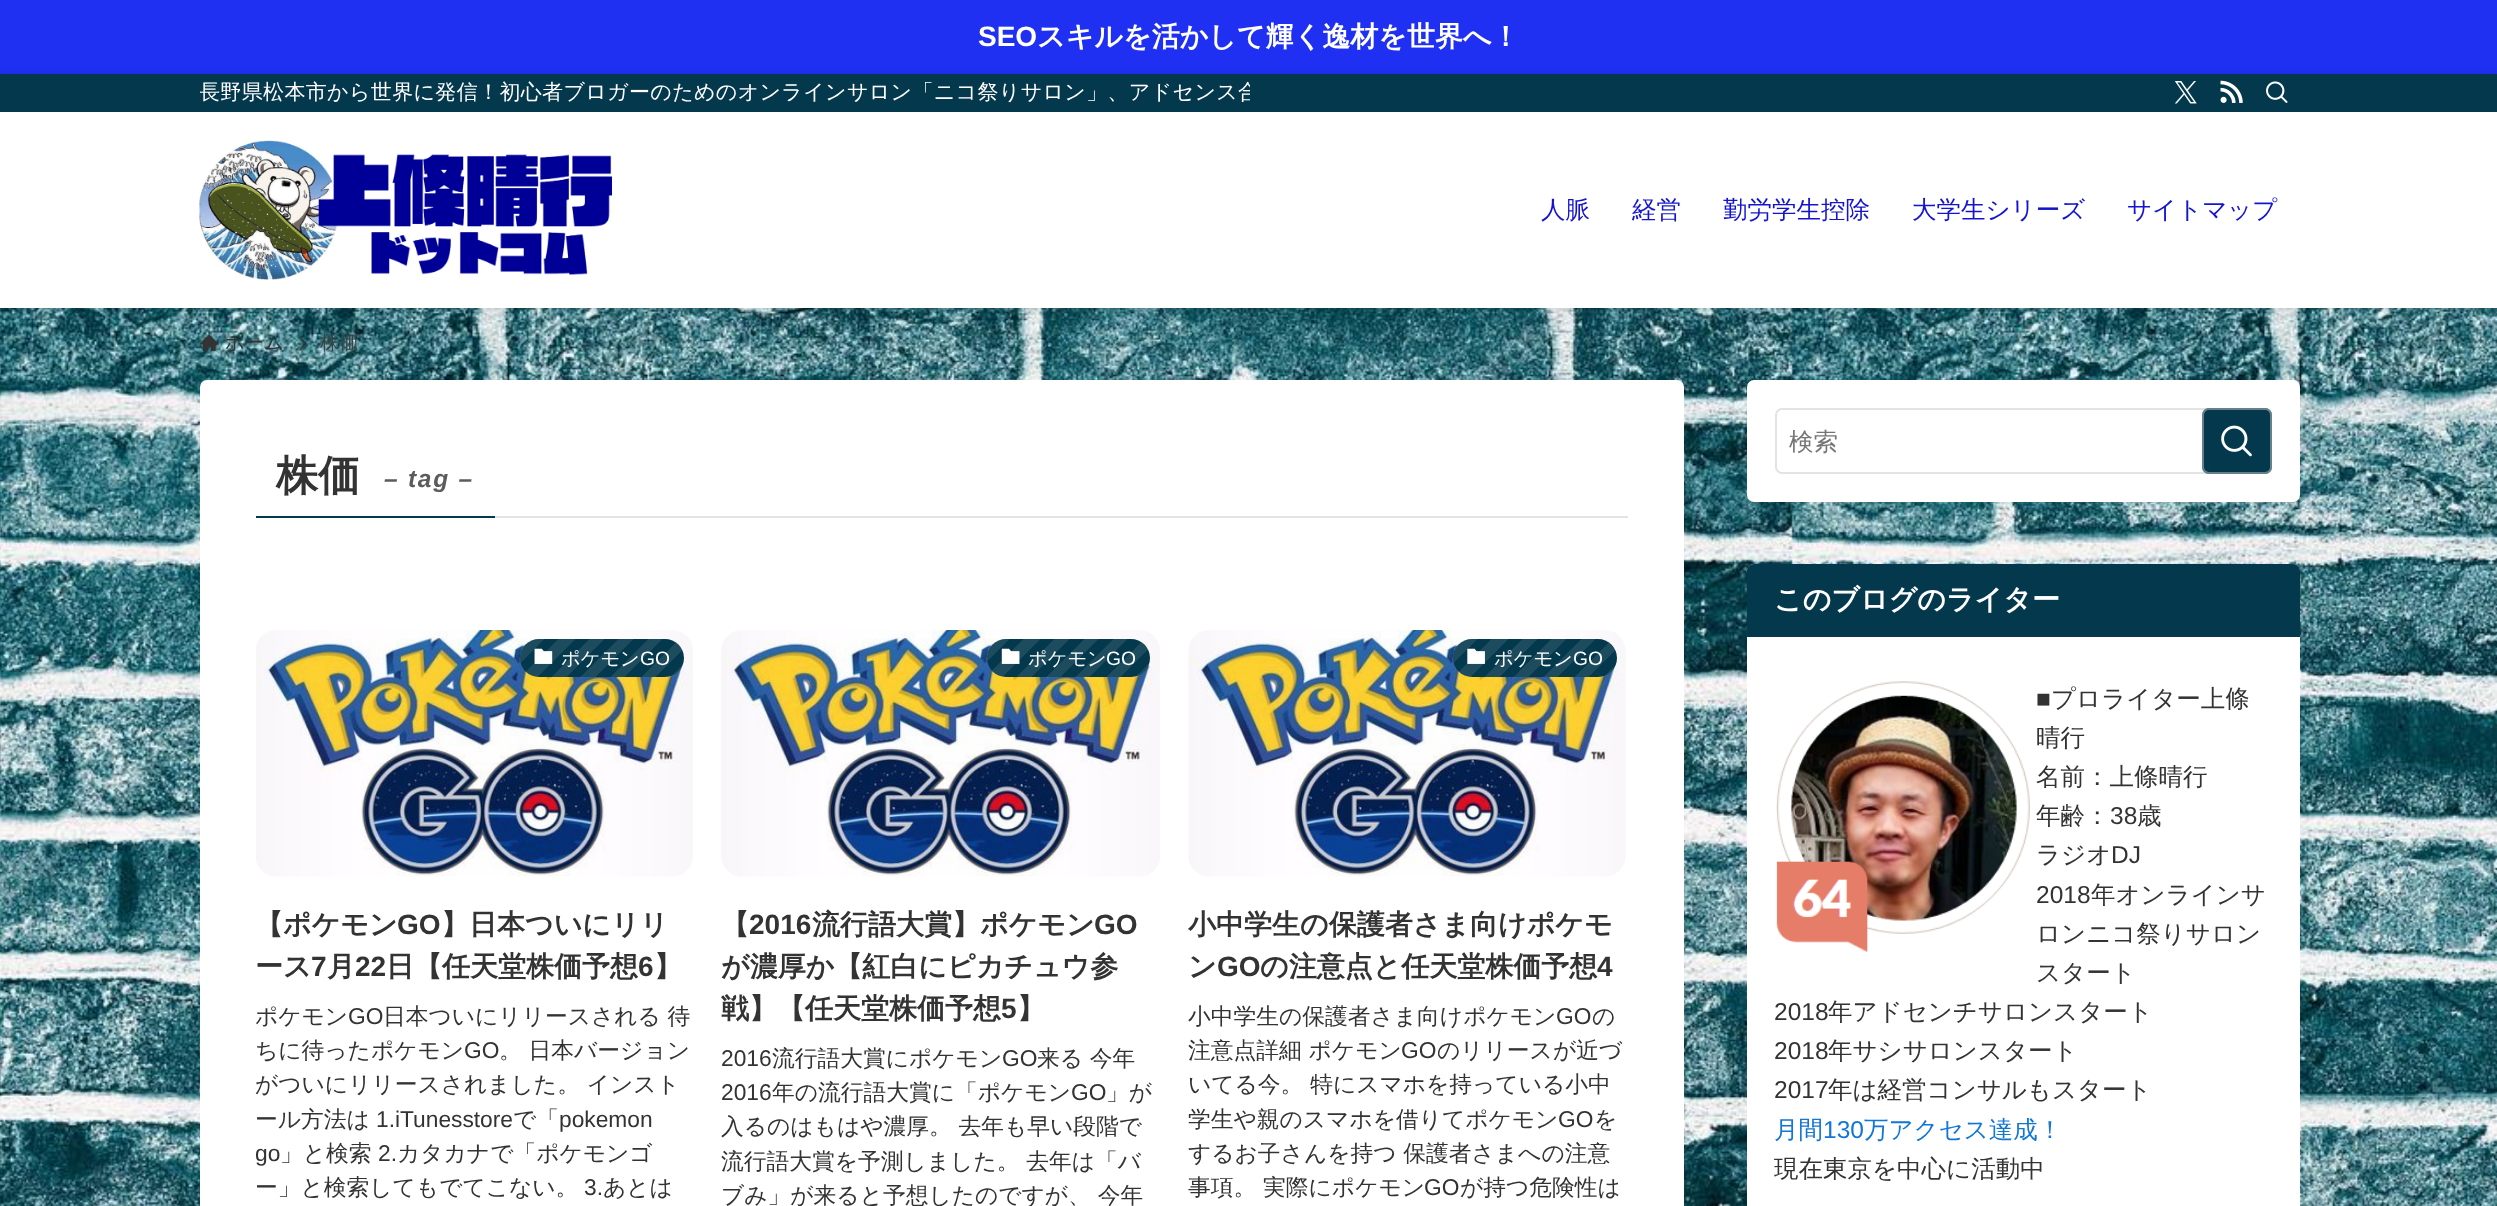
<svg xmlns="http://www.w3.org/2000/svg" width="2497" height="1206">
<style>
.a{font:bold 28px Liberation Sans;fill:#fff}
.b{font:bold 28px WenQuanYi Zen Hei;fill:#fff}
.c{font:500 21px WenQuanYi Zen Hei;letter-spacing:0.35px;fill:#fff}
.d{font:500 24.5px WenQuanYi Zen Hei;fill:#1414ce}
.e{font:500 19.25px WenQuanYi Zen Hei;fill:#333}
.f{font:500 19.25px WenQuanYi Zen Hei;fill:#384244}
.g{font:bold 42px WenQuanYi Zen Hei;fill:#333}
.h{font:italic bold 24.5px Liberation Sans;letter-spacing:1.75px;fill:#5c5c5c}
.i{font:500 19.25px WenQuanYi Zen Hei;fill:#fff}
.j{font:19.25px Liberation Sans;fill:#fff}
.k{font:bold 28px WenQuanYi Zen Hei;fill:#333}
.l{font:bold 28px Liberation Sans;fill:#333}
.m{font:500 22.75px WenQuanYi Zen Hei;fill:#333}
.n{font:22.75px Liberation Sans;fill:#333}
.o{font:500 24.5px WenQuanYi Zen Hei;fill:#757575}
.p{font:24.5px Liberation Sans;fill:#333}
.q{font:500 24.5px WenQuanYi Zen Hei;fill:#333}
.r{font:500 24.5px WenQuanYi Zen Hei;fill:#1176d4}
.s{font:24.5px Liberation Sans;fill:#1176d4}
</style>
<defs>
<linearGradient id="g1" gradientUnits="userSpaceOnUse" x1="653" y1="709" x2="549" y2="605"><stop offset="0" stop-color="#fff" stop-opacity="0.1"/><stop offset="0.07" stop-color="#fff" stop-opacity="0.1"/><stop offset="0.07" stop-color="#fff" stop-opacity="0"/><stop offset="0.14" stop-color="#fff" stop-opacity="0"/><stop offset="0.14" stop-color="#fff" stop-opacity="0.1"/><stop offset="0.21" stop-color="#fff" stop-opacity="0.1"/><stop offset="0.21" stop-color="#fff" stop-opacity="0"/><stop offset="0.29" stop-color="#fff" stop-opacity="0"/><stop offset="0.29" stop-color="#fff" stop-opacity="0.1"/><stop offset="0.36" stop-color="#fff" stop-opacity="0.1"/><stop offset="0.36" stop-color="#fff" stop-opacity="0"/><stop offset="0.43" stop-color="#fff" stop-opacity="0"/><stop offset="0.43" stop-color="#fff" stop-opacity="0.1"/><stop offset="0.5" stop-color="#fff" stop-opacity="0.1"/><stop offset="0.5" stop-color="#fff" stop-opacity="0"/><stop offset="0.57" stop-color="#fff" stop-opacity="0"/><stop offset="0.57" stop-color="#fff" stop-opacity="0.1"/><stop offset="0.64" stop-color="#fff" stop-opacity="0.1"/><stop offset="0.64" stop-color="#fff" stop-opacity="0"/><stop offset="0.71" stop-color="#fff" stop-opacity="0"/><stop offset="0.71" stop-color="#fff" stop-opacity="0.1"/><stop offset="0.79" stop-color="#fff" stop-opacity="0.1"/><stop offset="0.79" stop-color="#fff" stop-opacity="0"/><stop offset="0.86" stop-color="#fff" stop-opacity="0"/><stop offset="0.86" stop-color="#fff" stop-opacity="0.1"/><stop offset="0.93" stop-color="#fff" stop-opacity="0.1"/><stop offset="0.93" stop-color="#fff" stop-opacity="0"/><stop offset="1" stop-color="#000" stop-opacity="0"/></linearGradient>
<linearGradient id="g2" gradientUnits="userSpaceOnUse" x1="1119" y1="708" x2="1015" y2="604"><stop offset="0" stop-color="#fff" stop-opacity="0.1"/><stop offset="0.07" stop-color="#fff" stop-opacity="0.1"/><stop offset="0.07" stop-color="#fff" stop-opacity="0"/><stop offset="0.14" stop-color="#fff" stop-opacity="0"/><stop offset="0.14" stop-color="#fff" stop-opacity="0.1"/><stop offset="0.21" stop-color="#fff" stop-opacity="0.1"/><stop offset="0.21" stop-color="#fff" stop-opacity="0"/><stop offset="0.29" stop-color="#fff" stop-opacity="0"/><stop offset="0.29" stop-color="#fff" stop-opacity="0.1"/><stop offset="0.36" stop-color="#fff" stop-opacity="0.1"/><stop offset="0.36" stop-color="#fff" stop-opacity="0"/><stop offset="0.43" stop-color="#fff" stop-opacity="0"/><stop offset="0.43" stop-color="#fff" stop-opacity="0.1"/><stop offset="0.5" stop-color="#fff" stop-opacity="0.1"/><stop offset="0.5" stop-color="#fff" stop-opacity="0"/><stop offset="0.57" stop-color="#fff" stop-opacity="0"/><stop offset="0.57" stop-color="#fff" stop-opacity="0.1"/><stop offset="0.64" stop-color="#fff" stop-opacity="0.1"/><stop offset="0.64" stop-color="#fff" stop-opacity="0"/><stop offset="0.71" stop-color="#fff" stop-opacity="0"/><stop offset="0.71" stop-color="#fff" stop-opacity="0.1"/><stop offset="0.79" stop-color="#fff" stop-opacity="0.1"/><stop offset="0.79" stop-color="#fff" stop-opacity="0"/><stop offset="0.86" stop-color="#fff" stop-opacity="0"/><stop offset="0.86" stop-color="#fff" stop-opacity="0.1"/><stop offset="0.93" stop-color="#fff" stop-opacity="0.1"/><stop offset="0.93" stop-color="#fff" stop-opacity="0"/><stop offset="1" stop-color="#000" stop-opacity="0"/></linearGradient>
<linearGradient id="g3" gradientUnits="userSpaceOnUse" x1="1586" y1="709" x2="1482" y2="605"><stop offset="0" stop-color="#fff" stop-opacity="0.1"/><stop offset="0.07" stop-color="#fff" stop-opacity="0.1"/><stop offset="0.07" stop-color="#fff" stop-opacity="0"/><stop offset="0.14" stop-color="#fff" stop-opacity="0"/><stop offset="0.14" stop-color="#fff" stop-opacity="0.1"/><stop offset="0.21" stop-color="#fff" stop-opacity="0.1"/><stop offset="0.21" stop-color="#fff" stop-opacity="0"/><stop offset="0.29" stop-color="#fff" stop-opacity="0"/><stop offset="0.29" stop-color="#fff" stop-opacity="0.1"/><stop offset="0.36" stop-color="#fff" stop-opacity="0.1"/><stop offset="0.36" stop-color="#fff" stop-opacity="0"/><stop offset="0.43" stop-color="#fff" stop-opacity="0"/><stop offset="0.43" stop-color="#fff" stop-opacity="0.1"/><stop offset="0.5" stop-color="#fff" stop-opacity="0.1"/><stop offset="0.5" stop-color="#fff" stop-opacity="0"/><stop offset="0.57" stop-color="#fff" stop-opacity="0"/><stop offset="0.57" stop-color="#fff" stop-opacity="0.1"/><stop offset="0.64" stop-color="#fff" stop-opacity="0.1"/><stop offset="0.64" stop-color="#fff" stop-opacity="0"/><stop offset="0.71" stop-color="#fff" stop-opacity="0"/><stop offset="0.71" stop-color="#fff" stop-opacity="0.1"/><stop offset="0.79" stop-color="#fff" stop-opacity="0.1"/><stop offset="0.79" stop-color="#fff" stop-opacity="0"/><stop offset="0.86" stop-color="#fff" stop-opacity="0"/><stop offset="0.86" stop-color="#fff" stop-opacity="0.1"/><stop offset="0.93" stop-color="#fff" stop-opacity="0.1"/><stop offset="0.93" stop-color="#fff" stop-opacity="0"/><stop offset="1" stop-color="#000" stop-opacity="0"/></linearGradient>
<clipPath id="clip1"><path d="M200 74h1050v38H200z"/></clipPath>
</defs>
<rect width="100%" height="100%" fill="#fff"/>
<image href="1.png" x="0" y="308" width="2497" height="898"/>
<path fill="#1f30f2" d="M0 0h2497v74H0z"/>
<path fill="#0000001f" filter="blur(3.5px)" d="M0 75h2497v235H0z"/>
<path fill="#fff" d="M0 112h2497v196H0z"/>
<path fill="#04384c" d="M0 74h2497v38H0z"/>
<image href="2.png" x="2174" y="81" width="23" height="23"/>
<image href="3.png" x="2220" y="80" width="23" height="23"/>
<image href="4.png" x="2266" y="81" width="22" height="22"/>
<image href="5.png" x="199" y="140" width="414" height="140"/>
<image href="6.png" x="199" y="334" width="20" height="17"/>
<path fill="#333333cc" d="M301 336.5h-2.5l5 7l-5 7h2.5l5.5-6.5z"/>
<rect fill="#fff" x="200" y="380" width="1484" height="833" rx="7"/>
<path fill="#e3e3e3" d="M495 516h1133v2H495z"/>
<path fill="#04384c" d="M256 516h239v2H256z"/>
<image href="7.png" x="256" y="630" width="437" height="247"/>
<rect fill="#04384c" x="520" y="639" width="164" height="38" rx="19"/>
<rect fill="url(#g1)" x="520" y="639" width="164" height="38" rx="19"/>
<image href="8.png" x="534" y="648" width="19" height="16"/>
<image href="9.png" x="721" y="630" width="439" height="247"/>
<rect fill="#04384c" x="987" y="639" width="163" height="38" rx="19"/>
<rect fill="url(#g2)" x="987" y="639" width="163" height="38" rx="19"/>
<image href="10.png" x="1001" y="648" width="19" height="16"/>
<image href="11.png" x="1188" y="630" width="438" height="247"/>
<rect fill="#04384c" x="1453" y="639" width="164" height="38" rx="19"/>
<rect fill="url(#g3)" x="1453" y="639" width="164" height="38" rx="19"/>
<image href="12.png" x="1467" y="648" width="18" height="16"/>
<rect fill="#fff" x="1747" y="380" width="553" height="122" rx="7"/>
<rect fill="none" stroke="#e3e3e3" stroke-width="2" x="1776" y="409" width="495" height="64" rx="6"/>
<rect fill="#04384c" x="2202" y="408" width="70" height="66" rx="7"/>
<rect fill="none" stroke="#c7c7c780" stroke-width="2" x="2203" y="409" width="68" height="64" rx="6"/>
<image href="13.png" x="2221" y="425" width="31" height="32"/>
<rect fill="#fff" x="1747" y="564" width="553" height="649" rx="7"/>
<path fill="#04384c" d="M1754 564h539c4 0 7 3 7 7v66h-553v-66c0-4 3-7 7-7z"/>
<image href="14.png" x="1776" y="681" width="254" height="271"/>
<text class="a" x="978" y="46">SEO</text>
<text class="b" x="1037" y="46">スキルを活かして輝く逸材を世界へ！</text>
<g clip-path="url(#clip1)">
<text class="c" x="199" y="99">長野県松本市から世界に発信！初心者ブロガーのためのオンラインサロン「ニコ祭りサロン」、アドセンス合</text>
</g>
<text class="d" x="1541" y="218">人脈</text>
<text class="d" x="1632" y="218">経営</text>
<text class="d" x="1723" y="218">勤労学生控除</text>
<text class="d" x="1912" y="218">大学生シリーズ</text>
<text class="d" x="2127" y="218">サイトマップ</text>
<text class="e" x="225" y="349">ホーム</text>
<text class="f" x="320" y="349">株価</text>
<text class="g" x="276" y="490">株価</text>
<text class="h" x="384" y="487">– tag –</text>
<text class="i" x="561" y="665">ポケモン</text>
<text class="j" x="640" y="665">GO</text>
<text class="k" x="255" y="934">【ポケモン</text>
<text class="l" x="397" y="934">GO</text>
<text class="k" x="441" y="934">】日本ついにリリ</text>
<text class="k" x="255" y="976">ース</text>
<text class="l" x="311" y="976">7</text>
<text class="k" x="327" y="976">月</text>
<text class="l" x="355" y="976">22</text>
<text class="k" x="386" y="976">日【任天堂株価予想</text>
<text class="l" x="638" y="976">6</text>
<text class="k" x="654" y="976">】</text>
<text class="m" x="255" y="1024">ポケモン</text>
<text class="n" x="348" y="1024">GO</text>
<text class="m" x="383" y="1024">日本ついにリリースされる 待</text>
<text class="m" x="255" y="1058">ちに待ったポケモン</text>
<text class="n" x="464" y="1058">GO</text>
<text class="m" x="499" y="1058">。 日本バージョン</text>
<text class="m" x="255" y="1092">がついにリリースされました。 インスト</text>
<text class="m" x="255" y="1127">ール方法は</text>
<text class="n" x="376" y="1127">1.iTunesstore</text>
<text class="m" x="513" y="1127">で「</text>
<text class="n" x="559" y="1127">pokemon</text>
<text class="n" x="255" y="1161">go</text>
<text class="m" x="280" y="1161">」と検索</text>
<text class="n" x="378" y="1161">2.</text>
<text class="m" x="397" y="1161">カタカナで「ポケモンゴ</text>
<text class="m" x="255" y="1195">ー」と検索してもでてこない。</text>
<text class="n" x="584" y="1195">3.</text>
<text class="m" x="603" y="1195">あとは</text>
<text class="i" x="1028" y="665">ポケモン</text>
<text class="j" x="1106" y="665">GO</text>
<text class="k" x="721" y="934">【</text>
<text class="l" x="749" y="934">2016</text>
<text class="k" x="812" y="934">流行語大賞】ポケモン</text>
<text class="l" x="1094" y="934">GO</text>
<text class="k" x="721" y="976">が濃厚か【紅白にピカチュウ参</text>
<text class="k" x="721" y="1018">戦】【任天堂株価予想</text>
<text class="l" x="1001" y="1018">5</text>
<text class="k" x="1017" y="1018">】</text>
<text class="n" x="721" y="1066">2016</text>
<text class="m" x="772" y="1066">流行語大賞にポケモン</text>
<text class="n" x="1002" y="1066">GO</text>
<text class="m" x="1037" y="1066">来る 今年</text>
<text class="n" x="721" y="1100">2016</text>
<text class="m" x="772" y="1100">年の流行語大賞に「ポケモン</text>
<text class="n" x="1071" y="1100">GO</text>
<text class="m" x="1106" y="1100">」が</text>
<text class="m" x="721" y="1134">入るのはもはや濃厚。 去年も早い段階で</text>
<text class="m" x="721" y="1169">流行語大賞を予測しました。 去年は「バ</text>
<text class="m" x="721" y="1203">ブみ」が来ると予想したのですが、 今年</text>
<text class="i" x="1494" y="665">ポケモン</text>
<text class="j" x="1573" y="665">GO</text>
<text class="k" x="1188" y="934">小中学生の保護者さま向けポケモ</text>
<text class="k" x="1188" y="976">ン</text>
<text class="l" x="1217" y="976">GO</text>
<text class="k" x="1260" y="976">の注意点と任天堂株価予想</text>
<text class="l" x="1597" y="976">4</text>
<text class="m" x="1188" y="1024">小中学生の保護者さま向けポケモン</text>
<text class="n" x="1556" y="1024">GO</text>
<text class="m" x="1592" y="1024">の</text>
<text class="m" x="1188" y="1058">注意点詳細 ポケモン</text>
<text class="n" x="1401" y="1058">GO</text>
<text class="m" x="1437" y="1058">のリリースが近づ</text>
<text class="m" x="1188" y="1092">いてる今。 特にスマホを持っている小中</text>
<text class="m" x="1188" y="1127">学生や親のスマホを借りてポケモン</text>
<text class="n" x="1558" y="1127">GO</text>
<text class="m" x="1594" y="1127">を</text>
<text class="m" x="1188" y="1161">するお子さんを持つ 保護者さまへの注意</text>
<text class="m" x="1188" y="1195">事項。 実際にポケモン</text>
<text class="n" x="1424" y="1195">GO</text>
<text class="m" x="1460" y="1195">が持つ危険性は</text>
<text class="o" x="1789" y="450">検索</text>
<text class="b" x="1774" y="609">このブログのライター</text>
<text class="p" x="2036" y="707">■</text>
<text class="q" x="2051" y="707">プロライター上條</text>
<text class="q" x="2036" y="746">晴行</text>
<text class="q" x="2036" y="785">名前：上條晴行</text>
<text class="q" x="2036" y="824">年齢：</text>
<text class="p" x="2110" y="824">38</text>
<text class="q" x="2137" y="824">歳</text>
<text class="q" x="2036" y="863">ラジオ</text>
<text class="p" x="2111" y="863">DJ</text>
<text class="p" x="2036" y="903">2018</text>
<text class="q" x="2091" y="903">年オンラインサ</text>
<text class="q" x="2036" y="942">ロンニコ祭りサロン</text>
<text class="q" x="2036" y="981">スタート</text>
<text class="p" x="1774" y="1020">2018</text>
<text class="q" x="1828" y="1020">年アドセンチサロンスタート</text>
<text class="p" x="1774" y="1059">2018</text>
<text class="q" x="1828" y="1059">年サシサロンスタート</text>
<text class="p" x="1774" y="1098">2017</text>
<text class="q" x="1828" y="1098">年は経営コンサルもスタート</text>
<text class="r" x="1774" y="1138">月間</text>
<text class="s" x="1823" y="1138">130</text>
<text class="r" x="1864" y="1138">万アクセス達成！</text>
<text class="q" x="1774" y="1177">現在東京を中心に活動中</text>
</svg>
